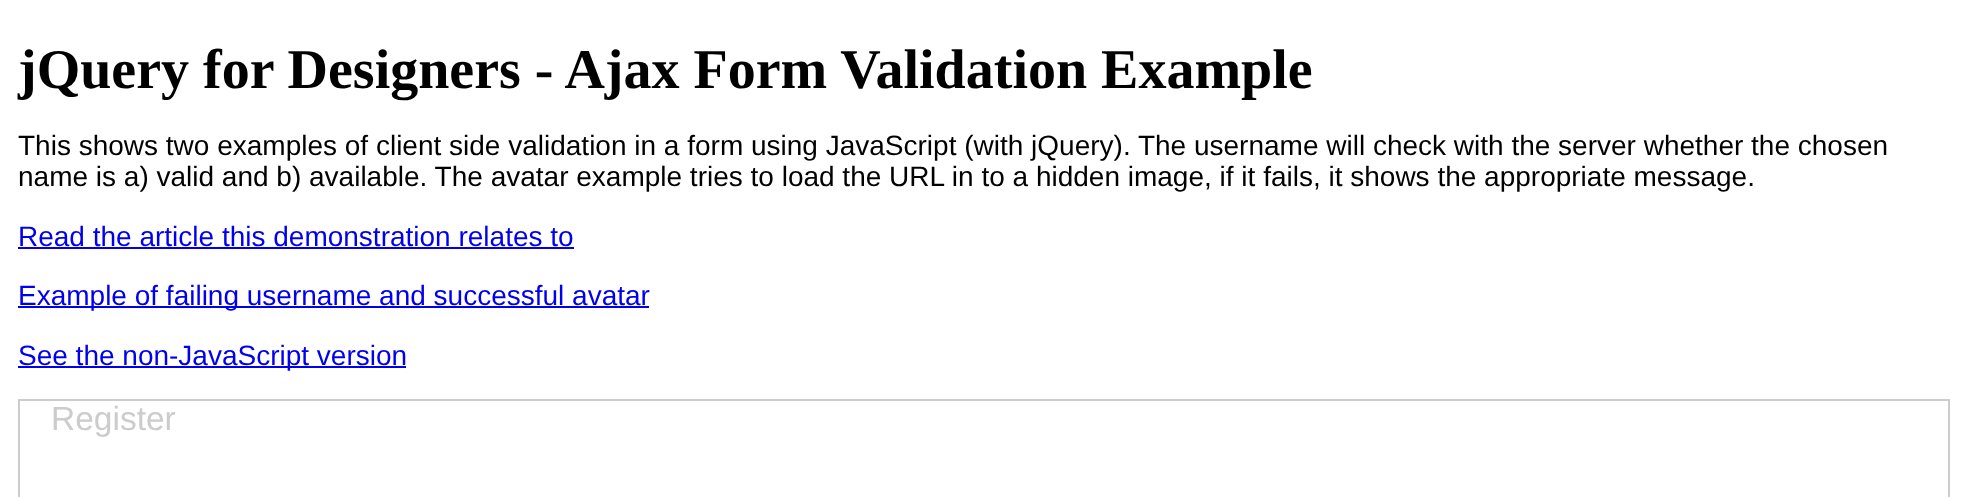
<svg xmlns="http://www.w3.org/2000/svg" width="1967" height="497">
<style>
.a{font:bold 56px Liberation Serif;fill:#000}
.b{font:28px Liberation Sans;fill:#000}
.c{font:28px Liberation Sans;fill:#00e}
.d{font:33.5px Liberation Sans;fill:#ccc}
</style>
<rect width="100%" height="100%" fill="#fff"/>
<path fill="#00e" d="M18 247h556v2H18z"/>
<path fill="#00e" d="M18 306h631v2H18z"/>
<path fill="#00e" d="M18 366h388v2H18z"/>
<path fill="none" stroke="#ccc" stroke-width="2" d="M19 400h1930v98H19z"/>
<text class="a" x="18" y="88">jQuery for Designers - Ajax Form Validation Example</text>
<text class="b" x="18" y="155">This shows two examples of client side validation in a form using JavaScript (with jQuery). The username will check with the server whether the chosen</text>
<text class="b" x="18" y="186">name is a) valid and b) available. The avatar example tries to load the URL in to a hidden image, if it fails, it shows the appropriate message.</text>
<text class="c" x="18" y="246">Read the article this demonstration relates to</text>
<text class="c" x="18" y="305">Example of failing username and successful avatar</text>
<text class="c" x="18" y="365">See the non-JavaScript version</text>
<text class="d" x="51" y="430">Register</text>
</svg>
